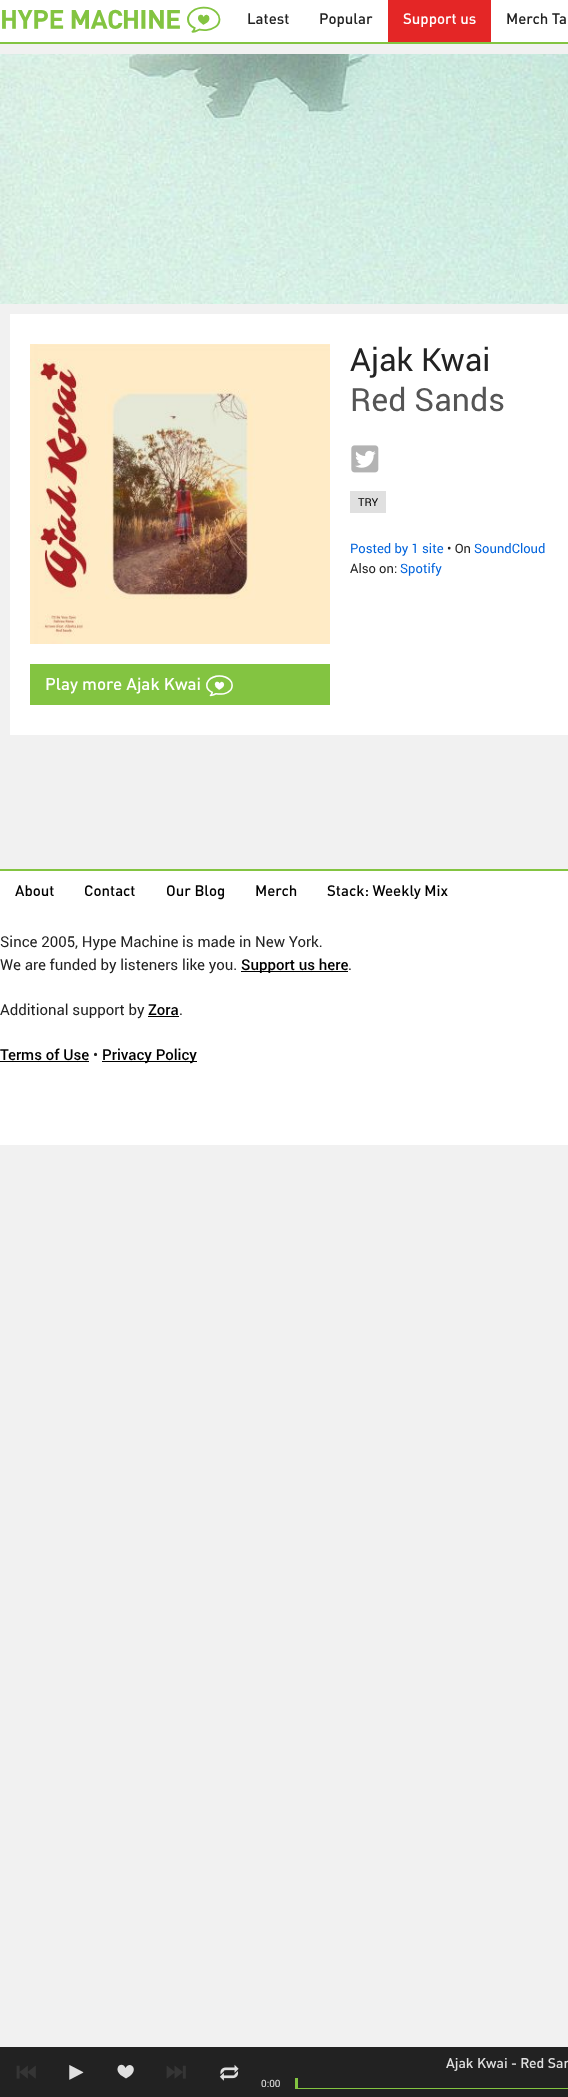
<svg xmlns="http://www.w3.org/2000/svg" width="568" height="2097">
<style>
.a{font:38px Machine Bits;fill:#83c441}
.b{font:500 15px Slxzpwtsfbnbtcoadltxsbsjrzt;fill:#222}
.c{font:500 15px Slxzpwtsfbnbtcoadltxsbsjrzt;fill:#fff}
.d{font:32px Roboto;fill:#222}
.e{font:32px Roboto;fill:#555}
.f{font:11px Roboto;fill:#000}
.g{font:13px Roboto;fill:#0063dc}
.h{font:13px Roboto;fill:#222}
.i{font:500 17px Slxzpwtsfbnbtcoadltxsbsjrzt;fill:#fff}
.j{font:21px Machine Bits;fill:#fff}
.k{font:500 15px Slxzpwtsfbnbtcoadltxsbsjrzt;fill:#000}
.l{font:15px Roboto;fill:#222}
.m{font:500 15px Roboto;fill:#000}
.n{font:500 14px Slxzpwtsfbnbtcoadltxsbsjrzt;fill:#e0e0e0}
.o{font:10px Roboto;fill:#e0e0e0}
</style>
<rect width="100%" height="100%" fill="#f1f1f1"/>
<path fill="#fff" d="M0 0h568v42H0z"/>
<path fill="#83c441" d="M0 42h568v2H0z"/>
<path fill="#e42626" d="M388 0h103v42H388z"/>
<image href="1.png" x="0" y="54" width="568" height="250"/>
<path fill="#fff" d="M10 314h558v421H10z"/>
<image href="2.png" x="30" y="344" width="300" height="300"/>
<image href="3.png" x="351" y="445" width="28" height="28"/>
<path fill="#e0e0e0" d="M350 491h36v22H350z"/>
<path fill="#83c441" d="M30 664h300v41H30z"/>
<path fill="#fff" d="M0 871h568v274H0z"/>
<path fill="#83c441" d="M0 869h568v2H0z"/>
<path fill="#000" d="M241 971h107v1H241z"/>
<path fill="#000" d="M148 1016h31v1H148z"/>
<path fill="#000" d="M0 1061h89v1H0z"/>
<path fill="#000" d="M102 1061h95v1H102z"/>
<path fill="#222" d="M0 2047h568v50H0z"/>
<image href="4.png" x="16" y="2065" width="20" height="14"/>
<image href="5.png" x="69" y="2065" width="15" height="15"/>
<path fill="#e0e0e0" d="M125.5 2068c3.5-7.5 14 0 4.5 8l-4 2.5l-5.5-3.5c-8-7.5 2-14.5 5-7z"/>
<image href="6.png" x="166" y="2065" width="20" height="14"/>
<image href="7.png" x="219" y="2064" width="20" height="17"/>
<path fill="#83c441" d="M295 2088h273v1H295z"/>
<path fill="#83c441" d="M295 2078h3v10H295z"/>
<text class="a" x="0" y="28">1</text>
<text class="b" x="247" y="24">Latest</text>
<text class="b" x="319" y="24">Popular</text>
<text class="c" x="403" y="24">Support us</text>
<text class="b" x="506" y="24">Merch Ta</text>
<text class="d" x="350" y="371">Ajak Kwai</text>
<text class="e" x="350" y="411">Red Sands</text>
<text class="f" x="358" y="506">TRY</text>
<text class="g" x="350" y="553">Posted by 1 site</text>
<text class="h" x="447" y="553">• On</text>
<text class="g" x="474" y="553">SoundCloud</text>
<text class="h" x="350" y="573">Also on:</text>
<text class="g" x="400" y="573">Spotify</text>
<text class="i" x="45" y="690">Play more Ajak Kwai</text>
<text class="j" x="205" y="690">2</text>
<text class="k" x="15" y="896">About</text>
<text class="k" x="84" y="896">Contact</text>
<text class="k" x="166" y="896">Our Blog</text>
<text class="k" x="255" y="896">Merch</text>
<text class="k" x="327" y="896">Stack: Weekly Mix</text>
<text class="l" x="0" y="947">Since 2005, Hype Machine is made in New York.</text>
<text class="l" x="0" y="970">We are funded by listeners like you.</text>
<text class="m" x="241" y="970">Support us here</text>
<text class="l" x="348" y="970">.</text>
<text class="l" x="0" y="1015">Additional support by</text>
<text class="m" x="148" y="1015">Zora</text>
<text class="l" x="179" y="1015">.</text>
<text class="m" x="0" y="1060">Terms of Use</text>
<text class="l" x="93" y="1060">•</text>
<text class="m" x="102" y="1060">Privacy Policy</text>
<text class="n" x="446" y="2068">Ajak Kwai - Red San</text>
<text class="o" x="261" y="2087">0:00</text>
</svg>
